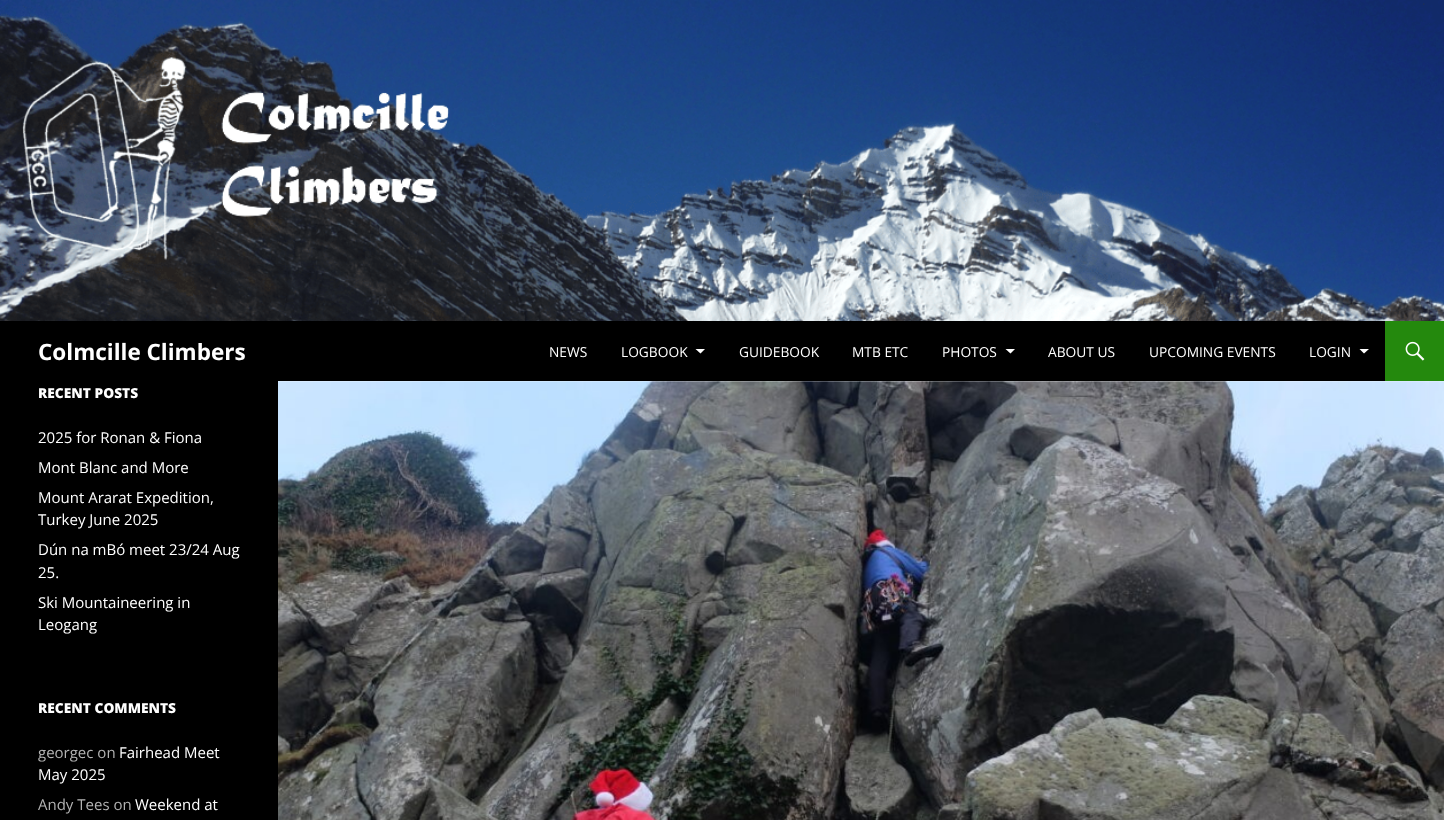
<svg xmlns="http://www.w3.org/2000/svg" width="1444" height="820">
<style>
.a{font:bold 22.5px Open Sans;fill:#fff}
.b{font:13.75px Open Sans;fill:#fff}
.c{font:800 13.75px Open Sans;fill:#fff}
.d{font:15px Open Sans;fill:#fff}
.e{font:15px Open Sans;fill:#b3b3b3}
</style>
<rect width="100%" height="100%" fill="#fff"/>
<image href="1.png" x="0" y="0" width="1444" height="321"/>
<path fill="#000" d="M0 321h1385v60H0z"/>
<path fill="#fff" d="M695.5 349l5 4.5l4.5-4.5z"/>
<path fill="#fff" d="M1005.5 349l5 4.5l4.5-4.5z"/>
<path fill="#fff" d="M1359.5 349l4.5 4.5l5-4.5z"/>
<path fill="#24890d" d="M1385 321h59v60H1385z"/>
<image href="2.png" x="1405" y="341" width="20" height="20"/>
<path fill="#000" d="M0 381h278v439H0z"/>
<image href="3.png" x="278" y="381" width="1166" height="1"/>
<image href="4.png" x="278" y="381" width="1166" height="439"/>
<text class="a" x="38" y="360">Colmcille Climbers</text>
<text class="b" x="549" y="357">NEWS</text>
<text class="b" x="621" y="357">LOGBOOK</text>
<text class="b" x="739" y="357">GUIDEBOOK</text>
<text class="b" x="852" y="357">MTB ETC</text>
<text class="b" x="942" y="357">PHOTOS</text>
<text class="b" x="1048" y="357">ABOUT US</text>
<text class="b" x="1149" y="357">UPCOMING EVENTS</text>
<text class="b" x="1309" y="357">LOGIN</text>
<text class="c" x="38" y="398">RECENT POSTS</text>
<text class="d" x="38" y="443">2025 for Ronan &amp; Fiona</text>
<text class="d" x="38" y="473">Mont Blanc and More</text>
<text class="d" x="38" y="503">Mount Ararat Expedition,</text>
<text class="d" x="38" y="525">Turkey June 2025</text>
<text class="d" x="38" y="555">Dún na mBó meet 23/24 Aug</text>
<text class="d" x="38" y="578">25.</text>
<text class="d" x="38" y="608">Ski Mountaineering in</text>
<text class="d" x="38" y="630">Leogang</text>
<text class="c" x="38" y="713">RECENT COMMENTS</text>
<text class="e" x="38" y="758">georgec on</text>
<text class="d" x="119" y="758">Fairhead Meet</text>
<text class="d" x="38" y="780">May 2025</text>
<text class="e" x="38" y="810">Andy Tees on</text>
<text class="d" x="135" y="810">Weekend at</text>
</svg>
